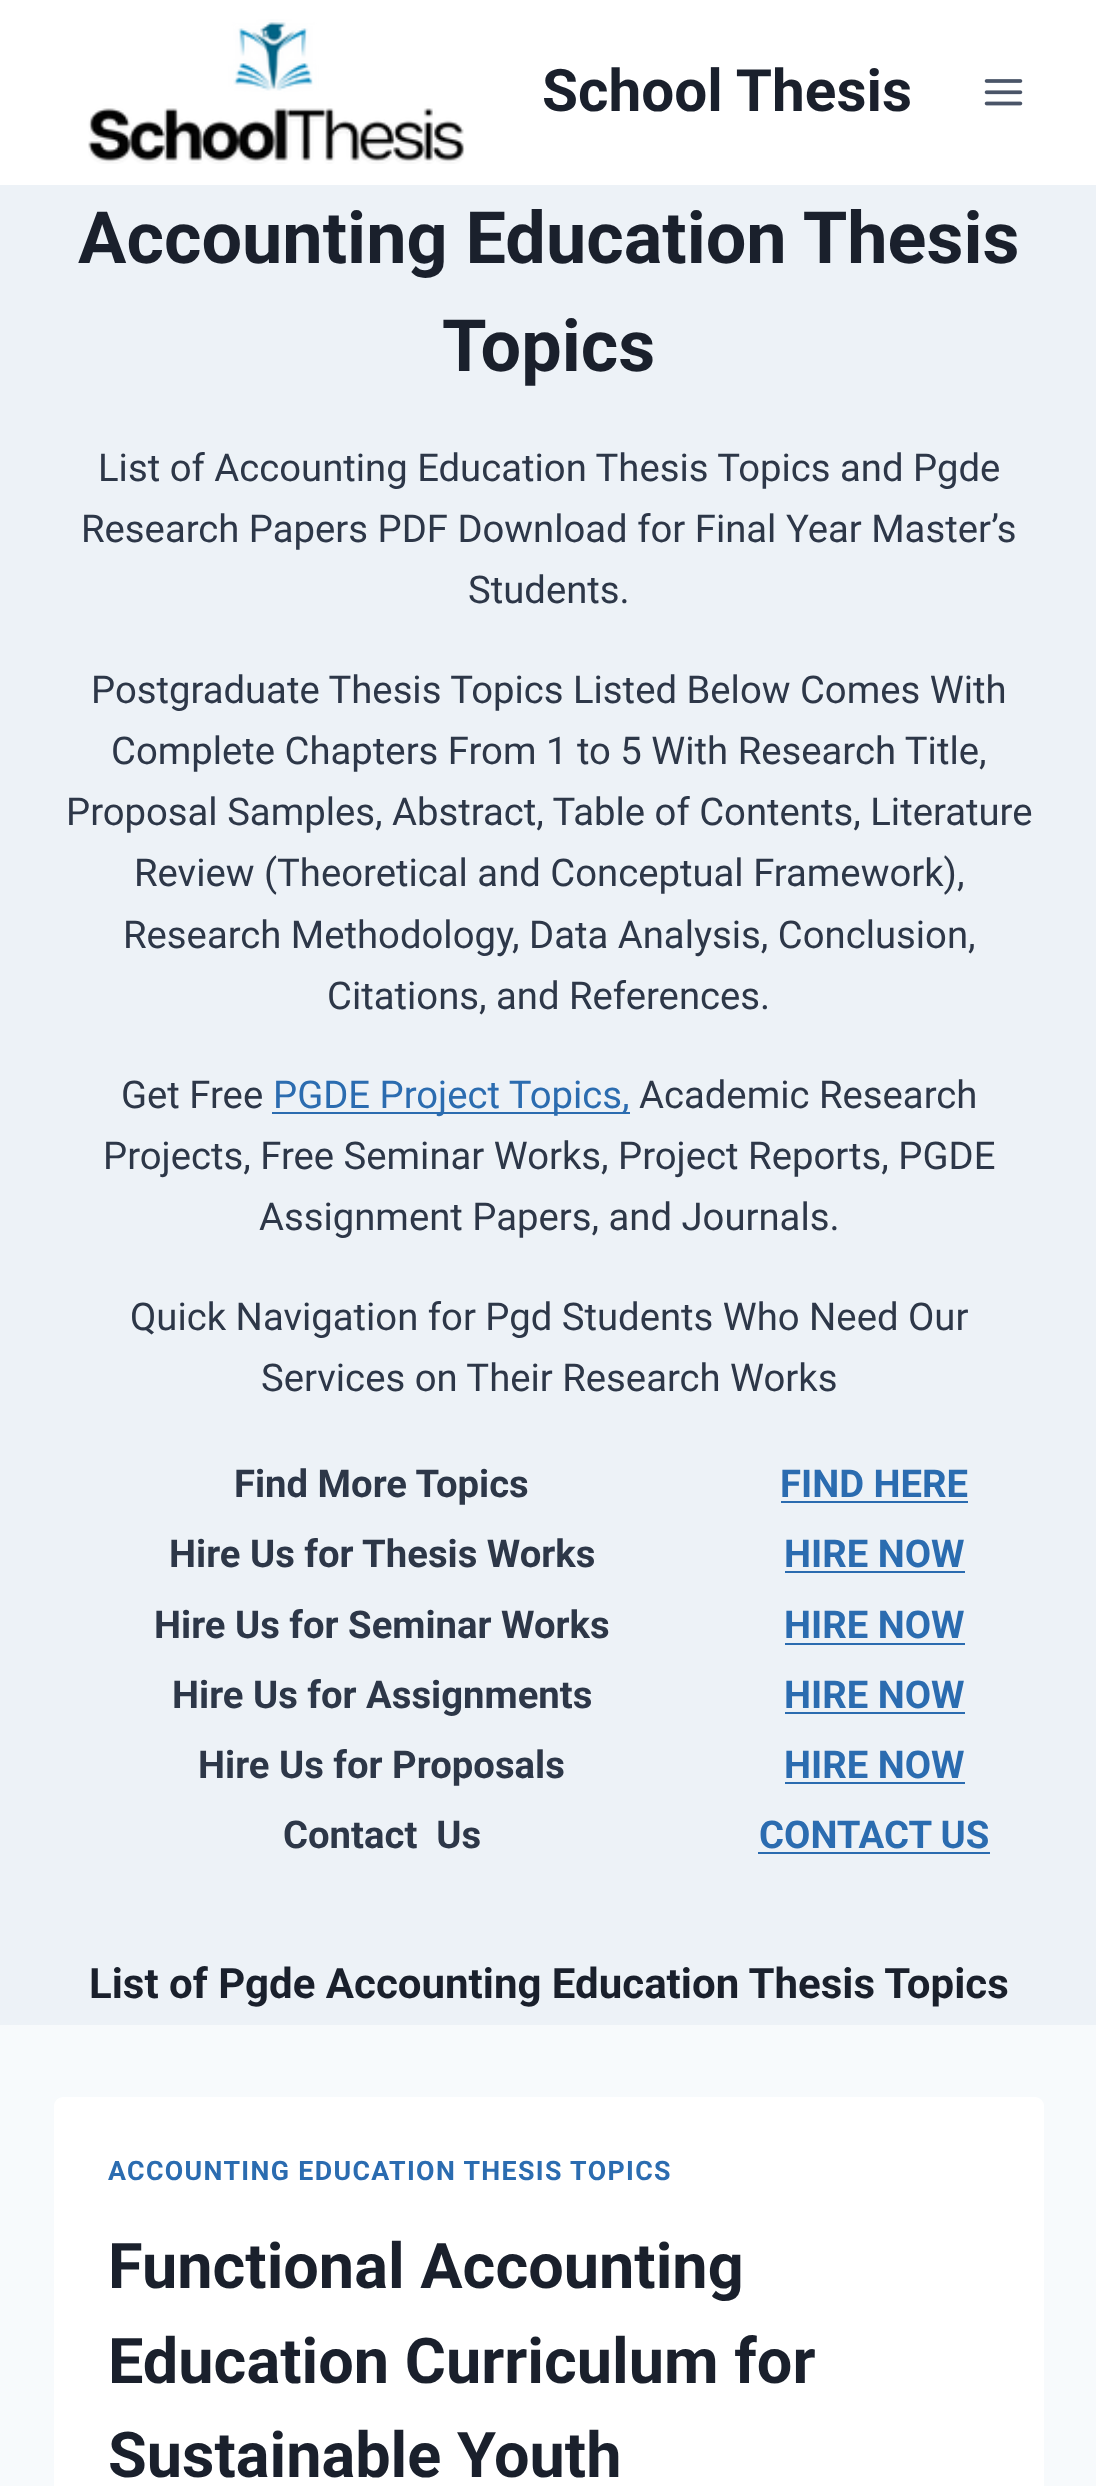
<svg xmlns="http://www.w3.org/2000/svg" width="1096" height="2486">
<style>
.a{font:bold 58.5px Roboto;fill:#1a202c}
.b{font:bold 72px Roboto;fill:#1a202c}
.c{font:38.25px Roboto;fill:#2d3748}
.d{font:38.25px Roboto;fill:#2b6cb0}
.e{font:bold 38.25px Roboto;fill:#2d3748}
.f{font:bold 38.25px Roboto;fill:#2b6cb0}
.g{font:bold 42px Roboto;fill:#1a202c}
.h{font:bold 26.75px Roboto;letter-spacing:1.35px;fill:#2b6cb0}
.i{font:bold 63px Roboto;fill:#1a202c}
</style>
<rect width="100%" height="100%" fill="#f7fafc"/>
<path fill="#fff" d="M0 0h1096v185H0z"/>
<image href="1.png" x="88" y="19" width="377" height="145"/>
<image href="2.png" x="984" y="79" width="39" height="27"/>
<path fill="#edf2f7" d="M0 185h1096v1840H0z"/>
<path fill="#2b6cb0" d="M272 1112h358v2H272z"/>
<path fill="#2b6cb0" d="M781 1501h187v2H781z"/>
<path fill="#2b6cb0" d="M785 1571h180v2H785z"/>
<path fill="#2b6cb0" d="M785 1643h180v2H785z"/>
<path fill="#2b6cb0" d="M785 1712h180v2H785z"/>
<path fill="#2b6cb0" d="M785 1782h180v2H785z"/>
<path fill="#2b6cb0" d="M758 1852h232v2H758z"/>
<rect fill="#fff" x="54" y="2097" width="990" height="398" rx="9"/>
<text class="a" x="542" y="111">School Thesis</text>
<text class="b" x="78" y="263">Accounting Education Thesis</text>
<text class="b" x="442" y="371">Topics</text>
<text class="c" x="98" y="481">List of Accounting Education Thesis Topics and Pgde</text>
<text class="c" x="81" y="542">Research Papers PDF Download for Final Year Master’s</text>
<text class="c" x="468" y="603">Students.</text>
<text class="c" x="91" y="703">Postgraduate Thesis Topics Listed Below Comes With</text>
<text class="c" x="111" y="764">Complete Chapters From 1 to 5 With Research Title,</text>
<text class="c" x="66" y="825">Proposal Samples, Abstract, Table of Contents, Literature</text>
<text class="c" x="134" y="886">Review (Theoretical and Conceptual Framework),</text>
<text class="c" x="123" y="948">Research Methodology, Data Analysis, Conclusion,</text>
<text class="c" x="327" y="1009">Citations, and References.</text>
<text class="c" x="121" y="1108">Get Free</text>
<text class="d" x="273" y="1108">PGDE Project Topics,</text>
<text class="c" x="639" y="1108">Academic Research</text>
<text class="c" x="103" y="1169">Projects, Free Seminar Works, Project Reports, PGDE</text>
<text class="c" x="259" y="1230">Assignment Papers, and Journals.</text>
<text class="c" x="130" y="1330">Quick Navigation for Pgd Students Who Need Our</text>
<text class="c" x="261" y="1391">Services on Their Research Works</text>
<text class="e" x="234" y="1497">Find More Topics</text>
<text class="f" x="780" y="1497">FIND HERE</text>
<text class="e" x="169" y="1567">Hire Us for Thesis Works</text>
<text class="f" x="784" y="1567">HIRE NOW</text>
<text class="e" x="154" y="1638">Hire Us for Seminar Works</text>
<text class="f" x="784" y="1638">HIRE NOW</text>
<text class="e" x="172" y="1708">Hire Us for Assignments</text>
<text class="f" x="784" y="1708">HIRE NOW</text>
<text class="e" x="198" y="1778">Hire Us for Proposals</text>
<text class="f" x="784" y="1778">HIRE NOW</text>
<text class="e" xml:space="preserve" x="283" y="1848">Contact  Us</text>
<text class="f" x="759" y="1848">CONTACT US</text>
<text class="g" x="89" y="1998">List of Pgde Accounting Education Thesis Topics</text>
<text class="h" x="108" y="2180">ACCOUNTING EDUCATION THESIS TOPICS</text>
<text class="i" x="108" y="2288">Functional Accounting</text>
<text class="i" x="108" y="2383">Education Curriculum for</text>
<text class="i" x="108" y="2477">Sustainable Youth</text>
</svg>
